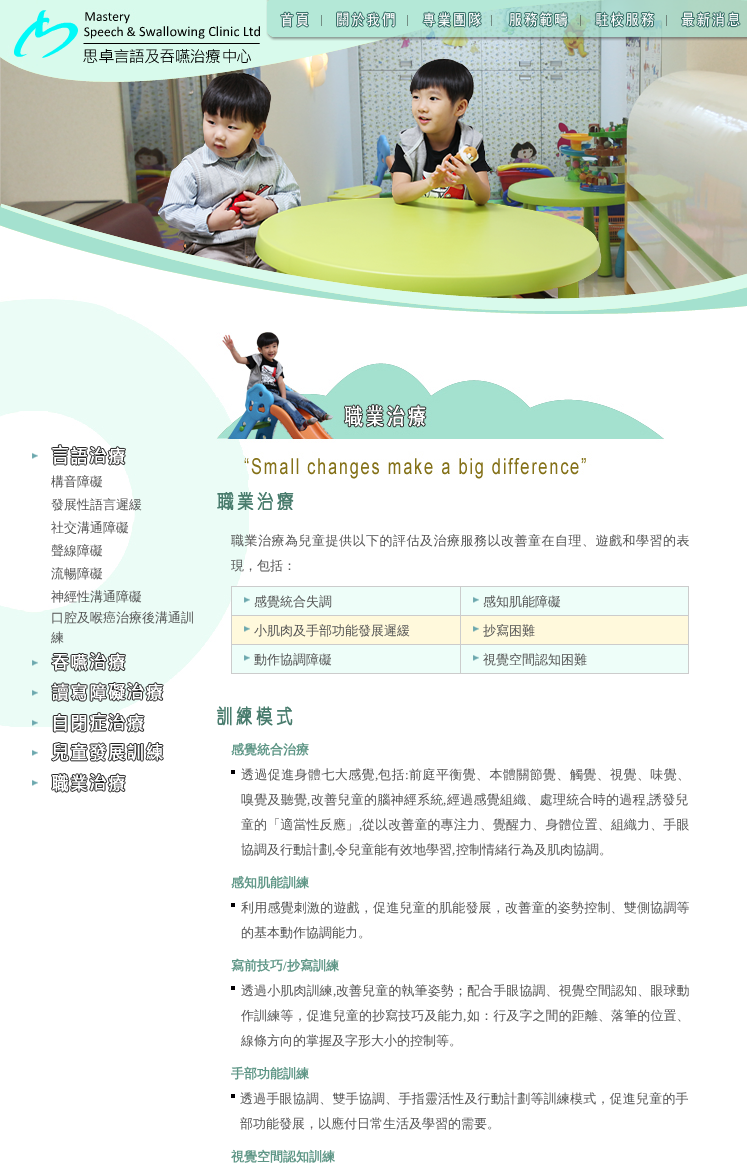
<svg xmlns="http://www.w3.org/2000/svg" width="747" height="1174">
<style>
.a{font:500 13px WenQuanYi Zen Hei;fill:#555}
.b{font:500 13px WenQuanYi Zen Hei;letter-spacing:0.5px;fill:#555}
.c{font:bold 13px WenQuanYi Zen Hei;fill:#5e9686}
.d{font:500 13px WenQuanYi Zen Hei;letter-spacing:0.4px;fill:#555}
.e{font:13px Liberation Serif;letter-spacing:0.4px;fill:#555}
.f{font:500 13px WenQuanYi Zen Hei;letter-spacing:0.25px;fill:#555}
.g{font:13px Liberation Serif;letter-spacing:0.25px;fill:#555}
.h{font:500 13px WenQuanYi Zen Hei;letter-spacing:0.1px;fill:#555}
.i{font:13px Liberation Serif;letter-spacing:0.1px;fill:#555}
.j{font:13px Liberation Serif;fill:#555}
.k{font:500 13px WenQuanYi Zen Hei;letter-spacing:0.2px;fill:#555}
.l{font:bold 13px Liberation Serif;fill:#5e9686}
</style>
<rect width="100%" height="100%" fill="#fff"/>
<image href="1.png" x="0" y="0" width="747" height="314"/>
<image href="2.png" x="266" y="0" width="56" height="41"/>
<image href="3.png" x="322" y="0" width="86" height="41"/>
<image href="4.png" x="408" y="0" width="84" height="41"/>
<image href="5.png" x="492" y="0" width="89" height="41"/>
<image href="6.png" x="581" y="0" width="86" height="41"/>
<image href="7.png" x="667" y="0" width="80" height="41"/>
<image href="8.png" x="0" y="314" width="249" height="413"/>
<image href="9.png" x="32" y="452" width="6" height="7"/>
<image href="10.png" x="51" y="444" width="75" height="22"/>
<image href="11.png" x="32" y="659" width="6" height="7"/>
<image href="12.png" x="51" y="652" width="75" height="20"/>
<image href="11.png" x="32" y="689" width="6" height="7"/>
<image href="13.png" x="51" y="682" width="113" height="20"/>
<image href="11.png" x="32" y="719" width="6" height="7"/>
<image href="14.png" x="52" y="712" width="93" height="21"/>
<image href="9.png" x="32" y="749" width="6" height="7"/>
<image href="15.png" x="51" y="742" width="113" height="20"/>
<image href="9.png" x="32" y="779" width="6" height="7"/>
<image href="16.png" x="51" y="773" width="75" height="20"/>
<image href="17.png" x="216" y="332" width="448" height="148"/>
<image href="18.png" x="217" y="492" width="77" height="18"/>
<path fill="#ccc" d="M231 586h458v88H231z"/>
<path fill="#eefef9" d="M232 587h228v28H232z"/>
<image href="19.png" x="244" y="596" width="6" height="7"/>
<path fill="#eefef9" d="M461 587h227v28H461z"/>
<image href="19.png" x="473" y="596" width="6" height="7"/>
<path fill="#fff9dc" d="M232 616h228v28H232z"/>
<image href="20.png" x="244" y="625" width="6" height="7"/>
<path fill="#fff9dc" d="M461 616h227v28H461z"/>
<image href="20.png" x="473" y="625" width="6" height="7"/>
<path fill="#eefef9" d="M232 645h228v28H232z"/>
<image href="19.png" x="244" y="654" width="6" height="7"/>
<path fill="#eefef9" d="M461 645h227v28H461z"/>
<image href="19.png" x="473" y="654" width="6" height="7"/>
<image href="21.png" x="216" y="706" width="77" height="20"/>
<path fill="#020003" d="M231 770h4v4H231z"/>
<path fill="#020003" d="M231 903h4v4H231z"/>
<path fill="#020003" d="M231 986h4v4H231z"/>
<path fill="#020003" d="M231 1094h4v4H231z"/>
<text class="a" x="51" y="486">構音障礙</text>
<text class="a" x="51" y="509">發展性語言遲緩</text>
<text class="a" x="51" y="532">社交溝通障礙</text>
<text class="a" x="51" y="555">聲線障礙</text>
<text class="a" x="51" y="578">流暢障礙</text>
<text class="a" x="51" y="601">神經性溝通障礙</text>
<text class="a" x="51" y="622">口腔及喉癌治療後溝通訓</text>
<text class="a" x="51" y="642">練</text>
<text class="b" x="231" y="545">職業治療為兒童提供以下的評估及治療服務以改善童在自理、遊戲和學習的表</text>
<text class="a" x="231" y="570">現，包括：</text>
<text class="a" x="254" y="606">感覺統合失調</text>
<text class="a" x="483" y="606">感知肌能障礙</text>
<text class="a" x="254" y="635">小肌肉及手部功能發展遲緩</text>
<text class="a" x="483" y="635">抄寫困難</text>
<text class="a" x="254" y="664">動作協調障礙</text>
<text class="a" x="483" y="664">視覺空間認知困難</text>
<text class="c" x="231" y="754">感覺統合治療</text>
<text class="d" x="241" y="779">透過促進身體七大感覺</text>
<text class="d" x="378" y="779">包括 前庭平衡覺、本體關節覺、觸覺、視覺、味覺、</text>
<text class="e" x="375" y="779">,</text>
<text class="e" x="405" y="779">:</text>
<text class="f" x="241" y="804">嗅覺及聽覺</text>
<text class="g" x="307" y="804">,</text>
<text class="f" x="311" y="804">改善兒童的腦神經系統</text>
<text class="g" x="443" y="804">,</text>
<text class="f" x="447" y="804">經過感覺組織、處理統合時的過程</text>
<text class="g" x="646" y="804">,</text>
<text class="f" x="649" y="804">誘發兒</text>
<text class="h" x="241" y="829">童的「適當性反應」</text>
<text class="i" x="359" y="829">,</text>
<text class="h" x="362" y="829">從以改善童的專注力、覺醒力、身體位置、組織力、手眼</text>
<text class="a" x="241" y="854">協調及行動計劃</text>
<text class="j" x="332" y="854">,</text>
<text class="a" x="335" y="854">令兒童能有效地學習</text>
<text class="j" x="452" y="854">,</text>
<text class="a" x="456" y="854">控制情緒行為及肌肉協調。</text>
<text class="c" x="231" y="887">感知肌能訓練</text>
<text class="k" x="241" y="912">利用感覺刺激的遊戲，促進兒童的肌能發展，改善童的姿勢控制、雙側協調等</text>
<text class="a" x="241" y="937">的基本動作協調能力。</text>
<text class="c" x="231" y="970">寫前技巧</text>
<text class="l" x="283" y="970">/</text>
<text class="c" x="287" y="970">抄寫訓練</text>
<text class="h" x="241" y="995">透過小肌肉訓練</text>
<text class="i" x="333" y="995">,</text>
<text class="h" x="336" y="995">改善兒童的執筆姿勢；配合手眼協調、視覺空間認知、眼球動</text>
<text class="h" x="241" y="1020">作訓練等，促進兒童的抄寫技巧及能力</text>
<text class="i" x="463" y="1020">,</text>
<text class="h" x="467" y="1020">如：行及字之間的距離、落筆的位置、</text>
<text class="a" x="241" y="1045">線條方向的掌握及字形大小的控制等。</text>
<text class="c" x="231" y="1078">手部功能訓練</text>
<text class="k" x="240" y="1103">透過手眼協調、雙手協調、手指靈活性及行動計劃等訓練模式，促進兒童的手</text>
<text class="a" x="240" y="1128">部功能發展，以應付日常生活及學習的需要。</text>
<text class="c" x="231" y="1161">視覺空間認知訓練</text>
</svg>
